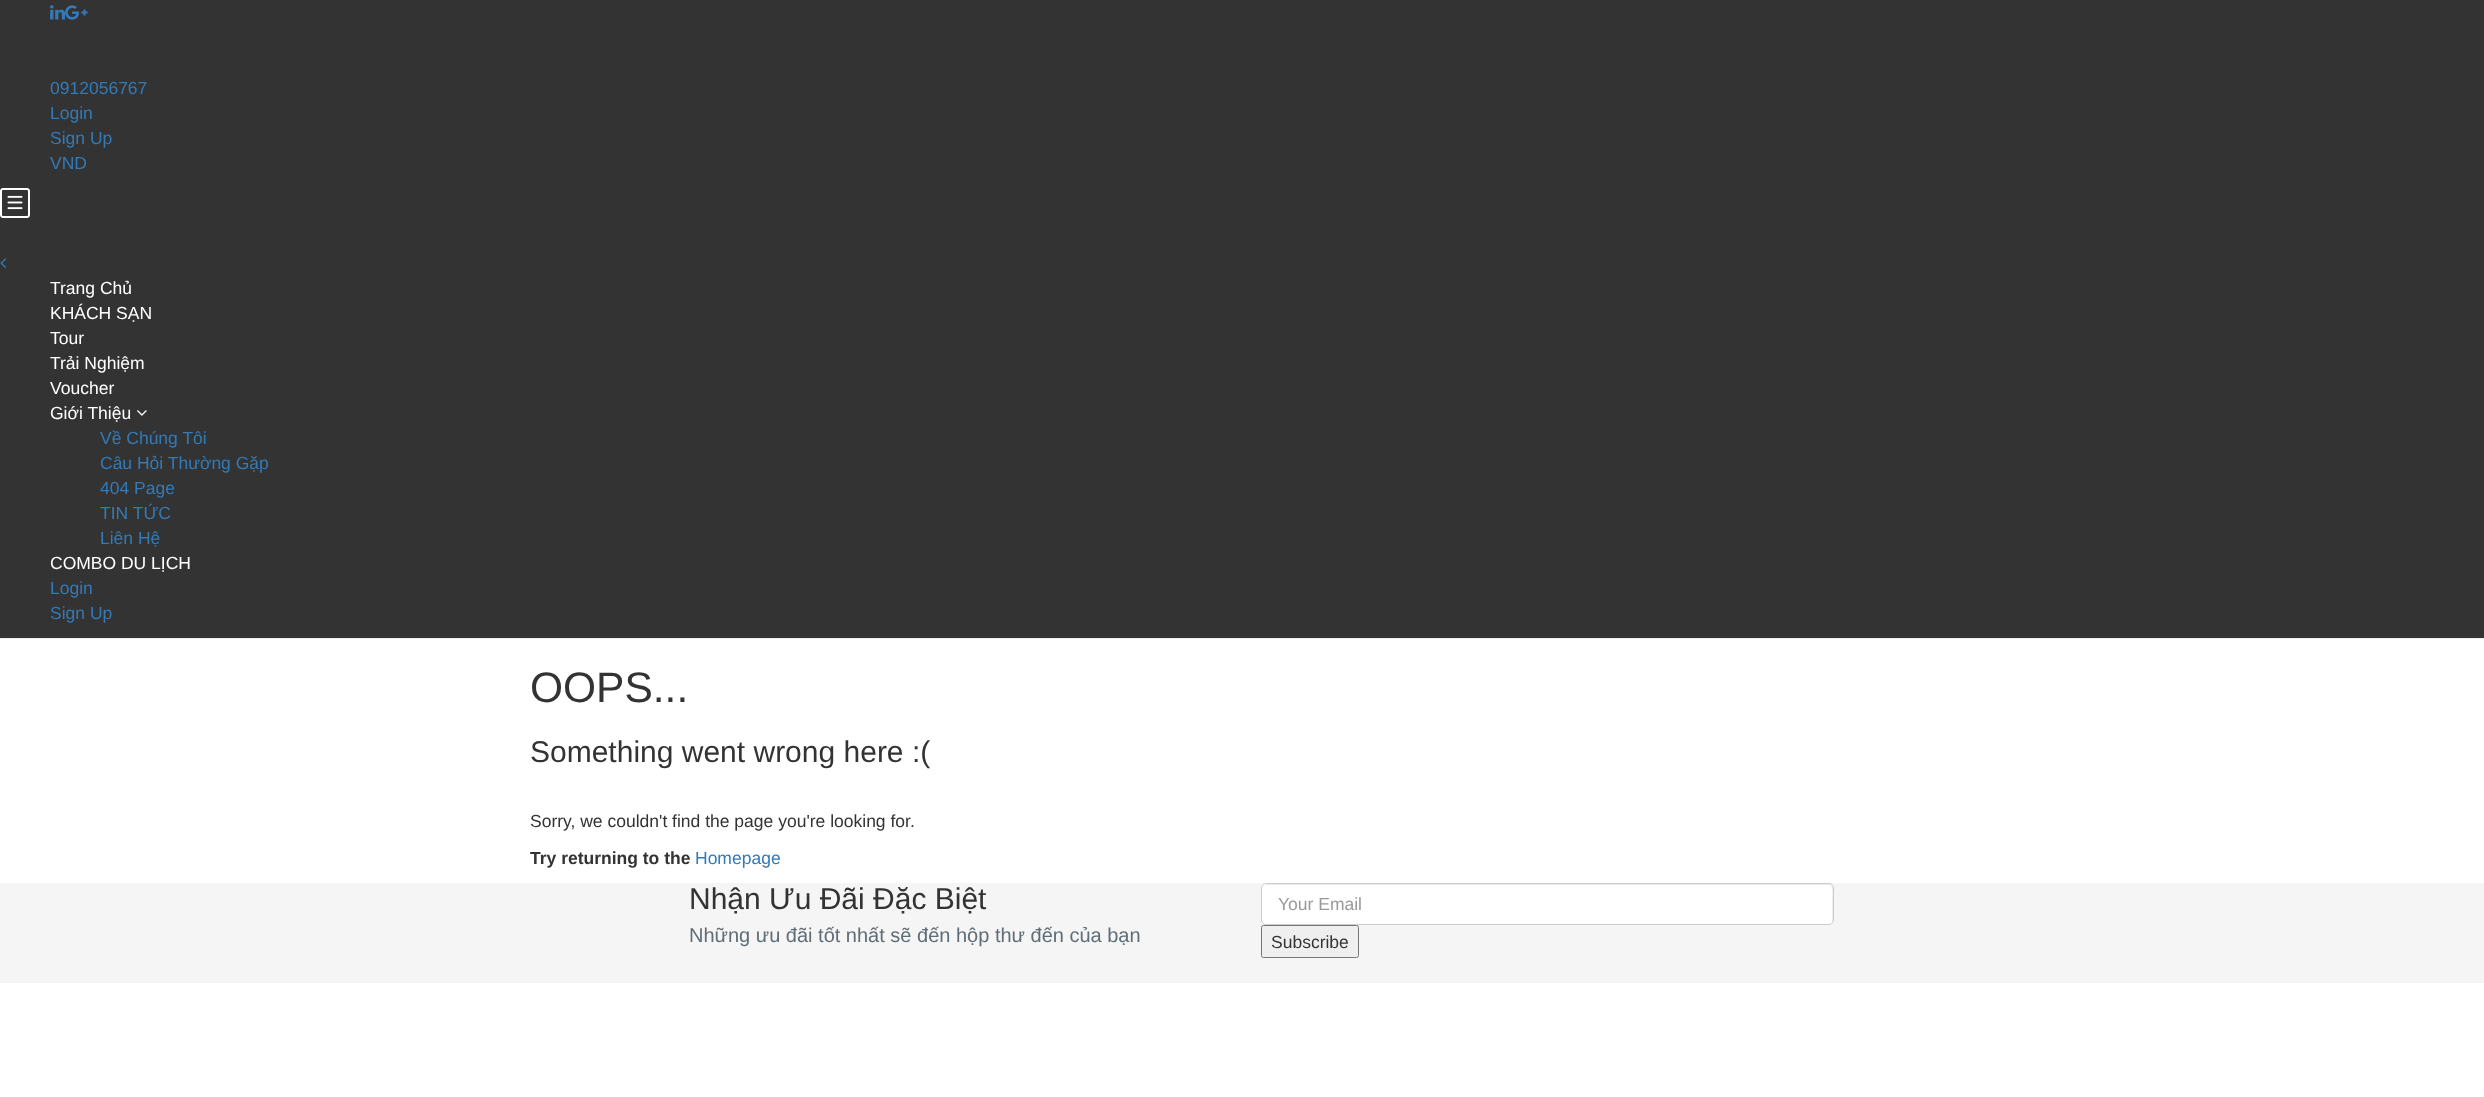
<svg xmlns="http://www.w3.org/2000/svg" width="2484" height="1097">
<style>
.a{font:17.5px Liberation Sans;fill:#337ab7}
.b{font:17.5px Liberation Sans;fill:#fff}
.c{font:42.5px Liberation Sans;fill:#333}
.d{font:30px Liberation Sans;fill:#333}
.e{font:17.5px Liberation Sans;fill:#333}
.f{font:bold 17.5px Liberation Sans;fill:#333}
.g{font:20px Liberation Sans;fill:#5e6d77}
.h{font:17.5px Liberation Sans;fill:#999}
</style>
<rect width="100%" height="100%" fill="#fff"/>
<path fill="#333" d="M0 0h2484v638H0z"/>
<image href="1.png" x="50" y="5" width="15" height="15"/>
<image href="2.png" x="65" y="5" width="23" height="15"/>
<path fill="#eaeef3" d="M0 638h2484v1H0z"/>
<image href="3.png" x="0" y="188" width="30" height="30"/>
<image href="4.png" x="0" y="258" width="7" height="10"/>
<image href="5.png" x="137" y="410" width="10" height="6"/>
<path fill="#f5f5f5" d="M0 883h2484v100H0z"/>
<rect fill="#fff" x="1261" y="883" width="573" height="42" rx="5"/>
<path fill="#ececec" d="M1266 885h563c5 0 3 13 3 15v23c0-1 1-2 1-3v-32c0-2-2-4-4-4h-562c-1 0-3 1-3 2z"/>
<rect fill="none" stroke="#ccc" x="1261.5" y="883.5" width="572" height="41" rx="4.5"/>
<rect fill="#efefef" stroke="#767676" x="1261.5" y="925.5" width="97" height="32" rx="2"/>
<text class="a" x="50" y="94">0912056767</text>
<text class="a" x="50" y="119">Login</text>
<text class="a" x="50" y="144">Sign Up</text>
<text class="a" x="50" y="169">VND</text>
<text class="b" x="50" y="294">Trang Chủ</text>
<text class="b" x="50" y="319">KHÁCH SẠN</text>
<text class="b" x="50" y="344">Tour</text>
<text class="b" x="50" y="369">Trải Nghiệm</text>
<text class="b" x="50" y="394">Voucher</text>
<text class="b" x="50" y="419">Giới Thiệu</text>
<text class="a" x="100" y="444">Về Chúng Tôi</text>
<text class="a" x="100" y="469">Câu Hỏi Thường Gặp</text>
<text class="a" x="100" y="494">404 Page</text>
<text class="a" x="100" y="519">TIN TỨC</text>
<text class="a" x="100" y="544">Liên Hệ</text>
<text class="b" x="50" y="569">COMBO DU LỊCH</text>
<text class="a" x="50" y="594">Login</text>
<text class="a" x="50" y="619">Sign Up</text>
<text class="c" x="530" y="702">OOPS...</text>
<text class="d" x="530" y="762">Something went wrong here :(</text>
<text class="e" x="530" y="827">Sorry, we couldn't find the page you're looking for.</text>
<text class="f" x="530" y="864">Try returning to the</text>
<text class="a" x="695" y="864">Homepage</text>
<text class="d" x="689" y="909">Nhận Ưu Đãi Đặc Biệt</text>
<text class="g" x="689" y="942">Những ưu đãi tốt nhất sẽ đến hộp thư đến của bạn</text>
<text class="h" x="1278" y="910">Your Email</text>
<text class="e" x="1271" y="948">Subscribe</text>
</svg>
